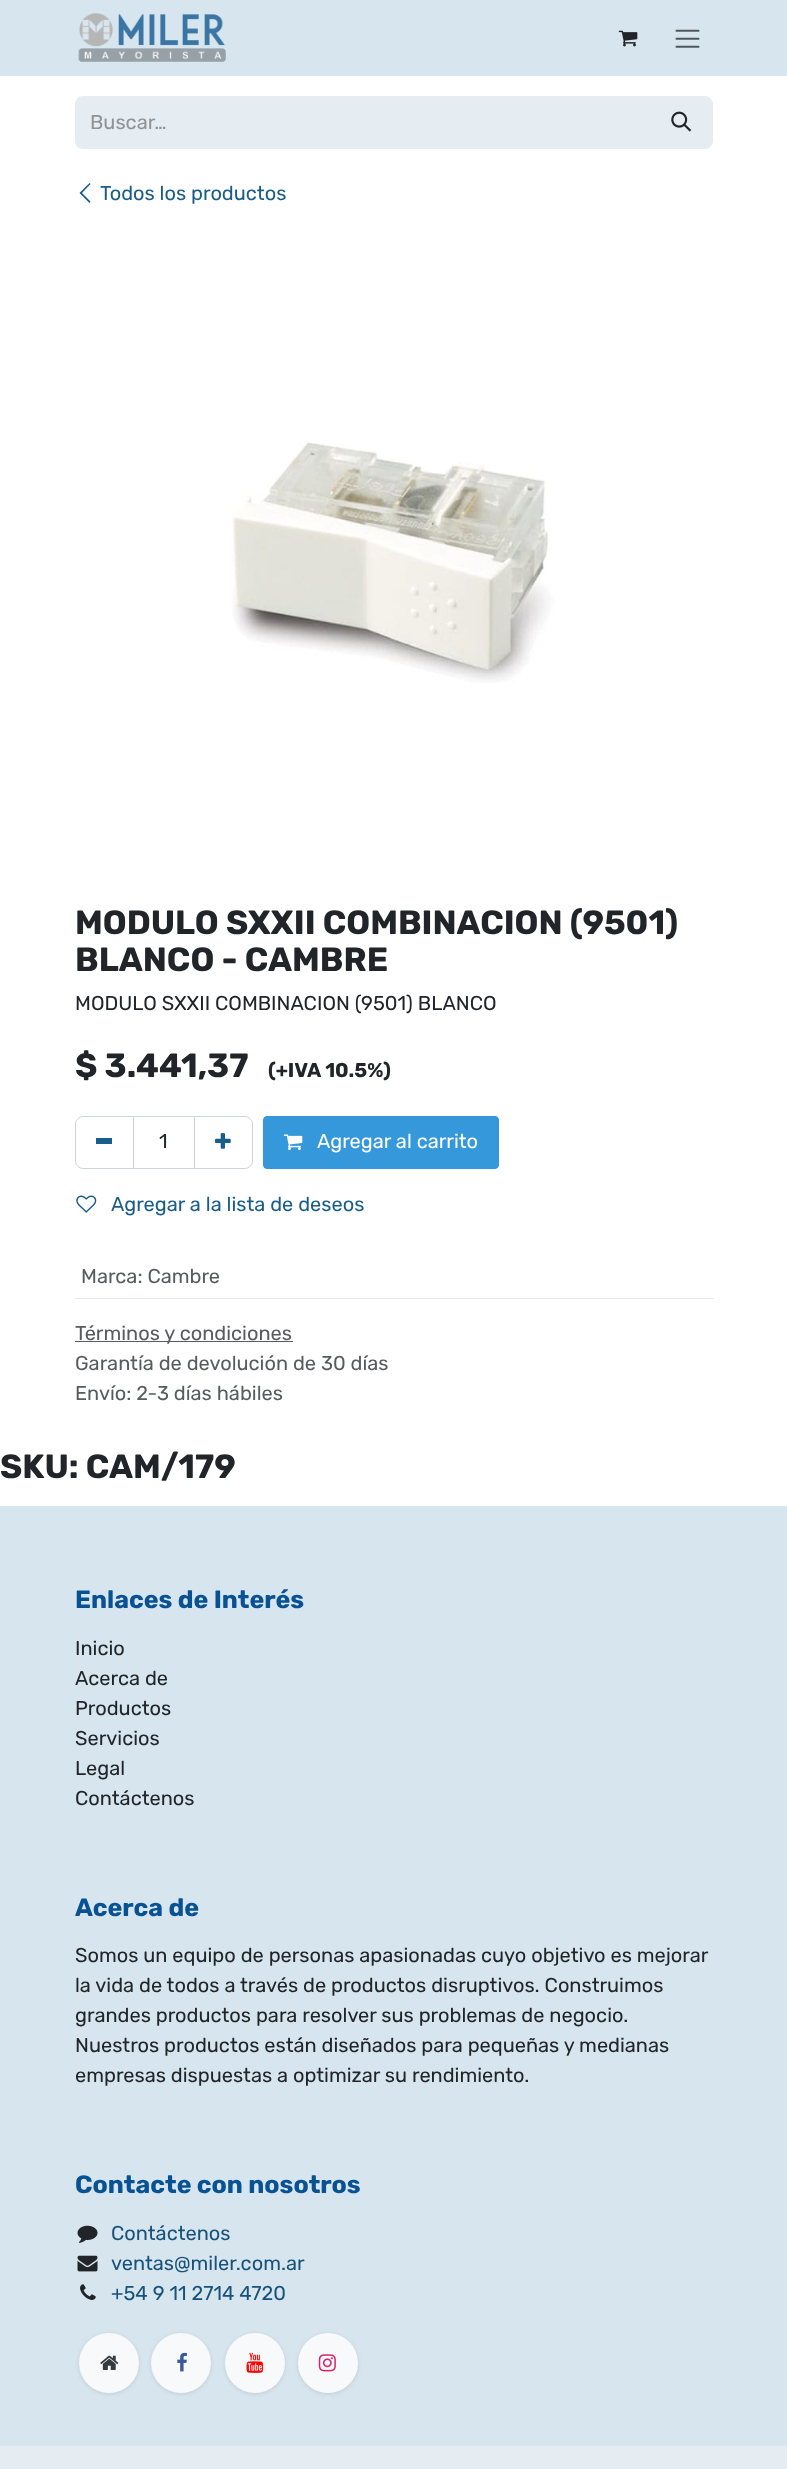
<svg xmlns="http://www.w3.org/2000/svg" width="787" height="2469">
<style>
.a{font:20px Rubik;fill:#909294}
.b{font:20px Rubik;fill:#195d8b}
.c{font:bold 33.6px Rubik;fill:#212529}
.d{font:20px Rubik;fill:#212529}
.e{font:bold 20px Rubik;fill:#212529}
.f{font:20px Rubik;fill:#fff}
.g{font:20px Rubik;fill:#595c5f}
.h{font:bold 25px Rubik;fill:#085294}
.i{font:20px Rubik;fill:#16527a}
</style>
<rect width="100%" height="100%" fill="#fff"/>
<path fill="#d7e5ee" d="M0 0h787v76H0z"/>
<image href="1.png" x="78" y="13" width="148" height="49"/>
<image href="2.png" x="618" y="30" width="20" height="17"/>
<image href="3.png" x="675" y="29" width="25" height="19"/>
<path fill="#e5edf2" d="M83 96h568v53h-568c-4.5 0-8-3.5-8-8v-37c0-4.5 3.5-8 8-8z"/>
<path fill="#e5edf2" stroke="#e5edf2" d="M650.5 96.5h54.5c4 0 7.5 3.5 7.5 7.5v37c0 4-3.5 7.5-7.5 7.5h-54.5z"/>
<image href="4.png" x="671" y="111" width="21" height="21"/>
<path fill="#195d8b" d="M79.5 193l10-10l1 1l-8.5 9l8.5 8.5l-1 1.5z"/>
<image href="5.png" x="232" y="442" width="323" height="241"/>
<path fill="none" stroke="#ced4da" d="M133.5 1116.5h61v52H133.5z"/>
<path fill="none" stroke="#ced4da" d="M83 1116.5h50.5v52h-50.5c-4 0-7.5-3.5-7.5-7.5v-37c0-4 3.5-7.5 7.5-7.5z"/>
<path fill="#195d8b" d="M96 1138h16v6H96z"/>
<path fill="none" stroke="#ced4da" d="M194.5 1116.5h50.5c4 0 7.5 3.5 7.5 7.5v37c0 4-3.5 7.5-7.5 7.5h-50.5z"/>
<image href="6.png" x="215" y="1133" width="16" height="16"/>
<rect fill="#3498db" stroke="#3498db" x="263.5" y="1116.5" width="235" height="52" rx="3.5"/>
<image href="7.png" x="283" y="1134" width="20" height="17"/>
<image href="8.png" x="76" y="1195" width="21" height="18"/>
<path fill="#e6e7e7" d="M75 1298h639v1H75z"/>
<path fill="#595c5f" d="M75 1341h218v1H75z"/>
<path fill="#d7e5ee" d="M0 1506h787v940H0z"/>
<image href="9.png" x="77" y="2225" width="21" height="18"/>
<image href="10.png" x="77" y="2255" width="21" height="17"/>
<image href="11.png" x="80" y="2284" width="16" height="16"/>
<rect fill="#0000001a" filter="blur(2px)" x="79" y="2334" width="60" height="60" rx="30"/>
<circle fill="#f8f9fa" cx="109" cy="2363" r="30"/>
<image href="12.png" x="100" y="2355" width="19" height="15"/>
<rect fill="#0000001a" filter="blur(2px)" x="151" y="2334" width="60" height="60" rx="30"/>
<circle fill="#f8f9fa" cx="181" cy="2363" r="30"/>
<image href="13.png" x="177" y="2352" width="10" height="20"/>
<rect fill="#0000001a" filter="blur(2px)" x="225" y="2334" width="60" height="60" rx="30"/>
<circle fill="#f8f9fa" cx="255" cy="2363" r="30"/>
<image href="14.png" x="246" y="2352" width="18" height="21"/>
<rect fill="#0000001a" filter="blur(2px)" x="298" y="2334" width="60" height="60" rx="30"/>
<circle fill="#f8f9fa" cx="328" cy="2363" r="30"/>
<image href="15.png" x="318" y="2354" width="18" height="18"/>
<path fill="#e5edf2" d="M0 2446h787v23H0z"/>
<text class="a" x="90" y="129">Buscar…</text>
<text class="b" x="100" y="200">Todos los productos</text>
<text class="c" x="75" y="934">MODULO SXXII COMBINACION (9501)</text>
<text class="c" x="75" y="971">BLANCO - CAMBRE</text>
<text class="d" x="75" y="1010">MODULO SXXII COMBINACION (9501) BLANCO</text>
<text class="c" x="75" y="1077">$ 3.441,37</text>
<text class="e" x="268" y="1077">(+IVA 10.5%)</text>
<text class="d" x="159" y="1148">1</text>
<text class="f" x="317" y="1148">Agregar al carrito</text>
<text class="b" x="111" y="1211">Agregar a la lista de deseos</text>
<text class="g" x="81" y="1283">Marca: Cambre</text>
<text class="g" x="75" y="1340">Términos y condiciones</text>
<text class="g" x="75" y="1370">Garantía de devolución de 30 días</text>
<text class="g" x="75" y="1400">Envío: 2-3 días hábiles</text>
<text class="c" x="0" y="1478">SKU: CAM/179</text>
<text class="h" x="75" y="1608">Enlaces de Interés</text>
<text class="d" x="75" y="1655">Inicio</text>
<text class="d" x="75" y="1685">Acerca de</text>
<text class="d" x="75" y="1715">Productos</text>
<text class="d" x="75" y="1745">Servicios</text>
<text class="d" x="75" y="1775">Legal</text>
<text class="d" x="75" y="1805">Contáctenos</text>
<text class="h" x="75" y="1916">Acerca de</text>
<text class="d" x="75" y="1962">Somos un equipo de personas apasionadas cuyo objetivo es mejorar</text>
<text class="d" x="75" y="1992">la vida de todos a través de productos disruptivos. Construimos</text>
<text class="d" x="75" y="2022">grandes productos para resolver sus problemas de negocio.</text>
<text class="d" x="75" y="2052">Nuestros productos están diseñados para pequeñas y medianas</text>
<text class="d" x="75" y="2082">empresas dispuestas a optimizar su rendimiento.</text>
<text class="h" x="75" y="2193">Contacte con nosotros</text>
<text class="i" x="111" y="2240">Contáctenos</text>
<text class="i" x="111" y="2270">ventas@miler.com.ar</text>
<text class="i" x="111" y="2300">+54 9 11 2714 4720</text>
</svg>
